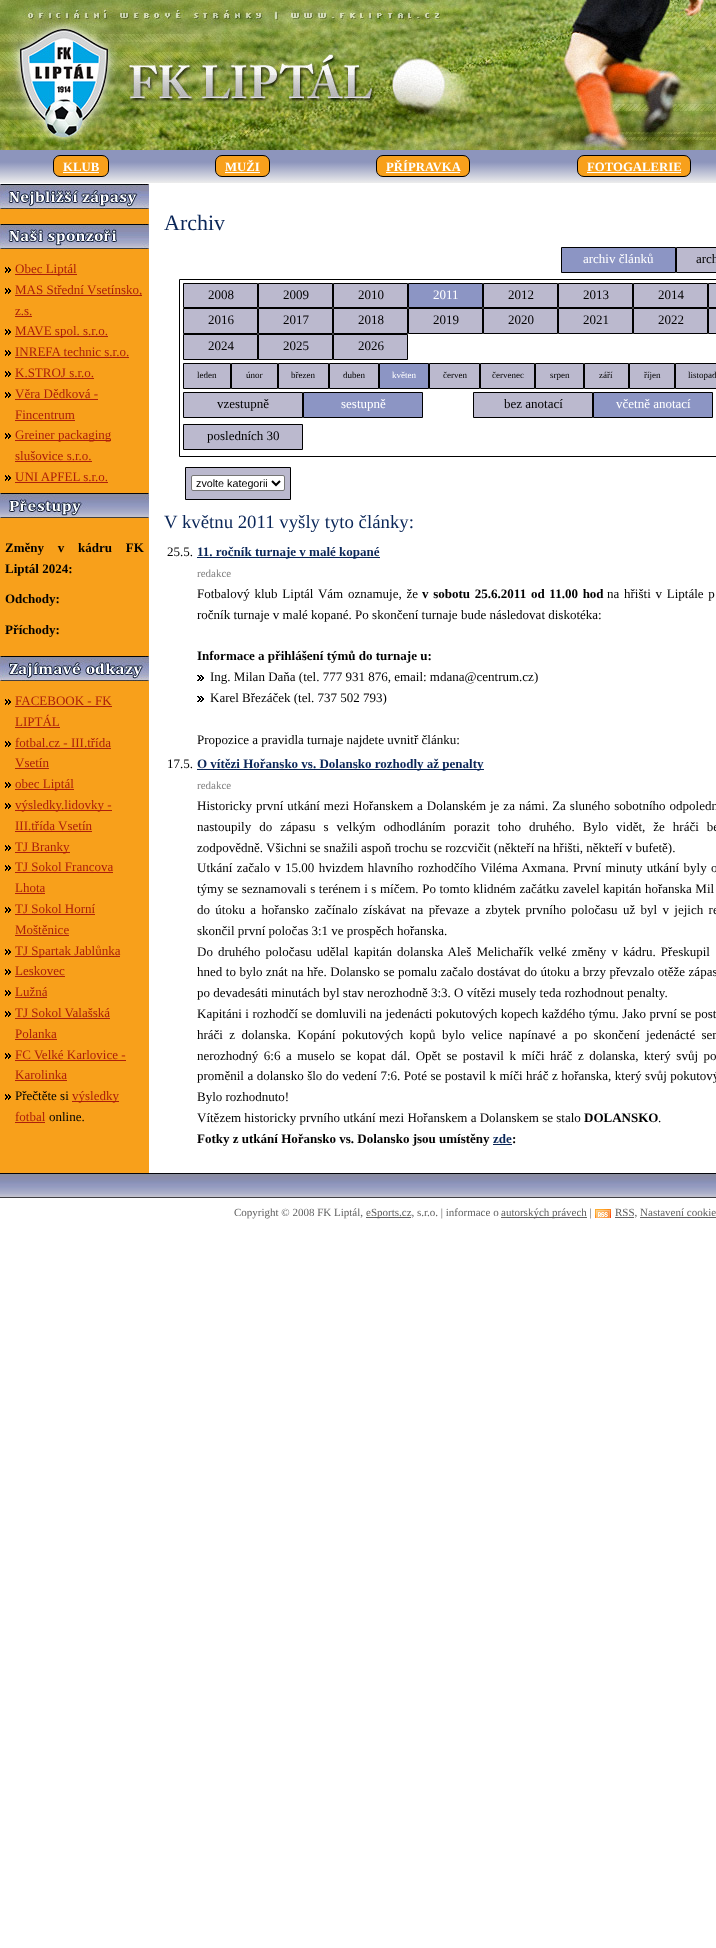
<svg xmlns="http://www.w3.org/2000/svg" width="716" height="1948">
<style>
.a{font:bold 12.75px Liberation Serif;fill:#fff}
.b{font:13px Liberation Serif;fill:#ac1f0b}
.c{font:bold 13px Liberation Serif;fill:#000}
.d{font:13px Liberation Serif;fill:#000}
.e{font:22px Liberation Serif;fill:#0a2658}
.f{font:13px Liberation Serif;fill:#fff}
.g{font:9px Liberation Serif;fill:#000}
.h{font:9px Liberation Serif;fill:#fff}
.i{font:10.75px Liberation Sans;fill:#000}
.j{font:18.8px Liberation Serif;fill:#0a2658}
.k{font:bold 13px Liberation Serif;fill:#0a2658}
.l{font:11px Liberation Serif;fill:#808080}
.m{font:11px Liberation Serif;fill:#616161}
</style>
<defs>
<linearGradient id="g1" gradientUnits="userSpaceOnUse" x1="477" y1="183" x2="477" y2="150"><stop offset="0" stop-color="#ededed"/><stop offset="0.63" stop-color="#8d95bc"/></linearGradient>
</defs>
<rect width="100%" height="100%" fill="#fff"/>
<image href="1.png" x="0" y="0" width="716" height="150"/>
<path fill="url(#g1)" d="M0 150h716v33H0z"/>
<rect fill="#f8a01b" stroke="#000" x="53.5" y="155.5" width="55" height="21" rx="6.5"/>
<path fill="#fff" d="M63 172h36v1H63z"/>
<rect fill="#f8a01b" stroke="#000" x="215.5" y="155.5" width="54" height="21" rx="6.5"/>
<path fill="#fff" d="M225 172h35v1H225z"/>
<rect fill="#f8a01b" stroke="#000" x="376.5" y="155.5" width="93" height="21" rx="6.5"/>
<path fill="#fff" d="M386 172h74v1H386z"/>
<rect fill="#f8a01b" stroke="#000" x="577.5" y="155.5" width="113" height="21" rx="6.5"/>
<path fill="#fff" d="M587 172h94v1H587z"/>
<path fill="#f8a01b" d="M0 209h149v964H0z"/>
<image href="2.png" x="0" y="184" width="149" height="25"/>
<image href="3.png" x="0" y="224" width="149" height="25"/>
<image href="4.png" x="5" y="267" width="6" height="6"/>
<path fill="#ac1f0b" d="M15 274h62v1H15z"/>
<image href="4.png" x="5" y="288" width="6" height="6"/>
<path fill="#ac1f0b" d="M15 295h127v1H15z"/>
<path fill="#ac1f0b" d="M15 316h17v1H15z"/>
<image href="4.png" x="5" y="329" width="6" height="6"/>
<path fill="#ac1f0b" d="M15 336h93v1H15z"/>
<image href="4.png" x="5" y="350" width="6" height="6"/>
<path fill="#ac1f0b" d="M15 357h114v1H15z"/>
<image href="4.png" x="5" y="371" width="6" height="6"/>
<path fill="#ac1f0b" d="M15 378h79v1H15z"/>
<image href="4.png" x="5" y="392" width="6" height="6"/>
<path fill="#ac1f0b" d="M15 399h83v1H15z"/>
<path fill="#ac1f0b" d="M15 420h60v1H15z"/>
<image href="4.png" x="5" y="433" width="6" height="6"/>
<path fill="#ac1f0b" d="M15 440h96v1H15z"/>
<path fill="#ac1f0b" d="M15 461h77v1H15z"/>
<image href="4.png" x="5" y="475" width="6" height="6"/>
<path fill="#ac1f0b" d="M15 482h93v1H15z"/>
<image href="5.png" x="0" y="493" width="149" height="25"/>
<image href="6.png" x="0" y="656" width="149" height="25"/>
<image href="4.png" x="5" y="699" width="6" height="6"/>
<path fill="#ac1f0b" d="M15 706h97v1H15z"/>
<path fill="#ac1f0b" d="M15 727h45v1H15z"/>
<image href="4.png" x="5" y="741" width="6" height="6"/>
<path fill="#ac1f0b" d="M15 748h96v1H15z"/>
<path fill="#ac1f0b" d="M15 768h34v1H15z"/>
<image href="4.png" x="5" y="782" width="6" height="6"/>
<path fill="#ac1f0b" d="M15 789h59v1H15z"/>
<image href="4.png" x="5" y="803" width="6" height="6"/>
<path fill="#ac1f0b" d="M15 810h97v1H15z"/>
<path fill="#ac1f0b" d="M15 831h77v1H15z"/>
<image href="4.png" x="5" y="845" width="6" height="6"/>
<path fill="#ac1f0b" d="M15 852h55v1H15z"/>
<image href="4.png" x="5" y="865" width="6" height="6"/>
<path fill="#ac1f0b" d="M15 872h98v1H15z"/>
<path fill="#ac1f0b" d="M15 893h30v1H15z"/>
<image href="4.png" x="5" y="907" width="6" height="6"/>
<path fill="#ac1f0b" d="M15 914h80v1H15z"/>
<path fill="#ac1f0b" d="M15 935h54v1H15z"/>
<image href="4.png" x="5" y="949" width="6" height="6"/>
<path fill="#ac1f0b" d="M15 956h105v1H15z"/>
<image href="4.png" x="5" y="969" width="6" height="6"/>
<path fill="#ac1f0b" d="M15 976h50v1H15z"/>
<image href="4.png" x="5" y="990" width="6" height="6"/>
<path fill="#ac1f0b" d="M15 997h32v1H15z"/>
<image href="4.png" x="5" y="1011" width="6" height="6"/>
<path fill="#ac1f0b" d="M15 1018h95v1H15z"/>
<path fill="#ac1f0b" d="M15 1039h42v1H15z"/>
<image href="4.png" x="5" y="1053" width="6" height="6"/>
<path fill="#ac1f0b" d="M15 1060h111v1H15z"/>
<path fill="#ac1f0b" d="M15 1080h52v1H15z"/>
<image href="4.png" x="5" y="1094" width="6" height="6"/>
<path fill="#ac1f0b" d="M72 1101h47v1H72z"/>
<path fill="#ac1f0b" d="M15 1122h30v1H15z"/>
<path fill="#8c95c4" stroke="#000" d="M561.5 247.5h114v25H561.5z"/>
<path fill="#bbb9ce" stroke="#000" d="M676.5 247.5h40v25H676.5z"/>
<path fill="none" stroke="#000" d="M179.5 279.5h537v177H179.5z"/>
<path fill="#bbb9ce" stroke="#000" d="M183.5 283.5h74v24H183.5z"/>
<path fill="#bbb9ce" stroke="#000" d="M258.5 283.5h74v24H258.5z"/>
<path fill="#bbb9ce" stroke="#000" d="M333.5 283.5h74v24H333.5z"/>
<path fill="#8c95c4" stroke="#000" d="M408.5 283.5h74v24H408.5z"/>
<path fill="#bbb9ce" stroke="#000" d="M483.5 283.5h74v24H483.5z"/>
<path fill="#bbb9ce" stroke="#000" d="M558.5 283.5h74v24H558.5z"/>
<path fill="#bbb9ce" stroke="#000" d="M633.5 283.5h74v24H633.5z"/>
<path fill="#bbb9ce" stroke="#000" d="M708.5 283.5h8v24H708.5z"/>
<path fill="#bbb9ce" stroke="#000" d="M183.5 308.5h74v25H183.5z"/>
<path fill="#bbb9ce" stroke="#000" d="M258.5 308.5h74v25H258.5z"/>
<path fill="#bbb9ce" stroke="#000" d="M333.5 308.5h74v25H333.5z"/>
<path fill="#bbb9ce" stroke="#000" d="M408.5 308.5h74v25H408.5z"/>
<path fill="#bbb9ce" stroke="#000" d="M483.5 308.5h74v25H483.5z"/>
<path fill="#bbb9ce" stroke="#000" d="M558.5 308.5h74v25H558.5z"/>
<path fill="#bbb9ce" stroke="#000" d="M633.5 308.5h74v25H633.5z"/>
<path fill="#bbb9ce" stroke="#000" d="M708.5 308.5h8v25H708.5z"/>
<path fill="#bbb9ce" stroke="#000" d="M183.5 334.5h74v25H183.5z"/>
<path fill="#bbb9ce" stroke="#000" d="M258.5 334.5h74v25H258.5z"/>
<path fill="#bbb9ce" stroke="#000" d="M333.5 334.5h74v25H333.5z"/>
<path fill="#bbb9ce" stroke="#000" d="M183.5 363.5h47v25H183.5z"/>
<path fill="#bbb9ce" stroke="#000" d="M231.5 363.5h46v25H231.5z"/>
<path fill="#bbb9ce" stroke="#000" d="M278.5 363.5h50v25H278.5z"/>
<path fill="#bbb9ce" stroke="#000" d="M329.5 363.5h49v25H329.5z"/>
<path fill="#8c95c4" stroke="#000" d="M379.5 363.5h49v25H379.5z"/>
<path fill="#bbb9ce" stroke="#000" d="M429.5 363.5h50v25H429.5z"/>
<path fill="#bbb9ce" stroke="#000" d="M480.5 363.5h54v25H480.5z"/>
<path fill="#bbb9ce" stroke="#000" d="M535.5 363.5h48v25H535.5z"/>
<path fill="#bbb9ce" stroke="#000" d="M584.5 363.5h44v25H584.5z"/>
<path fill="#bbb9ce" stroke="#000" d="M629.5 363.5h45v25H629.5z"/>
<path fill="#bbb9ce" stroke="#000" d="M675.5 363.5h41v25H675.5z"/>
<path fill="#bbb9ce" stroke="#000" d="M183.5 392.5h119v25H183.5z"/>
<path fill="#8c95c4" stroke="#000" d="M303.5 392.5h119v25H303.5z"/>
<path fill="#bbb9ce" stroke="#000" d="M473.5 392.5h119v25H473.5z"/>
<path fill="#8c95c4" stroke="#000" d="M593.5 392.5h119v25H593.5z"/>
<path fill="#bbb9ce" stroke="#000" d="M183.5 424.5h119v25H183.5z"/>
<path fill="#bbb9ce" stroke="#000" d="M185.5 467.5h105v32H185.5z"/>
<rect fill="#fff" stroke="#767676" x="191.5" y="475.5" width="93" height="15" rx="1.5"/>
<path fill="none" stroke="#000" stroke-width="2" d="M272 481l4 4l4-4"/>
<path fill="#0a2658" d="M197 557h183v1H197z"/>
<image href="7.png" x="197" y="675" width="7" height="6"/>
<image href="7.png" x="197" y="696" width="7" height="6"/>
<path fill="#0a2658" d="M197 769h287v1H197z"/>
<path fill="#0a2658" d="M493 1144h19v1H493z"/>
<image href="8.png" x="0" y="1173" width="716" height="25"/>
<path fill="#616161" d="M366 1217h45v1H366z"/>
<path fill="#616161" d="M501 1217h86v1H501z"/>
<image href="9.png" x="595" y="1209" width="16" height="9"/>
<path fill="#616161" d="M615 1217h19v1H615z"/>
<path fill="#616161" d="M640 1217h76v1H640z"/>
<text class="a" x="63" y="171">KLUB</text>
<text class="a" x="225" y="171">MUŽI</text>
<text class="a" x="386" y="171">PŘÍPRAVKA</text>
<text class="a" x="587" y="171">FOTOGALERIE</text>
<text class="b" x="15" y="273">Obec Liptál</text>
<text class="b" x="15" y="294">MAS Střední Vsetínsko,</text>
<text class="b" x="15" y="315">z.s.</text>
<text class="b" x="15" y="335">MAVE spol. s.r.o.</text>
<text class="b" x="15" y="356">INREFA technic s.r.o.</text>
<text class="b" x="15" y="377">K.STROJ s.r.o.</text>
<text class="b" x="15" y="398">Věra Dědková -</text>
<text class="b" x="15" y="419">Fincentrum</text>
<text class="b" x="15" y="439">Greiner packaging</text>
<text class="b" x="15" y="460">slušovice s.r.o.</text>
<text class="b" x="15" y="481">UNI APFEL s.r.o.</text>
<text class="c" x="5" y="552" word-spacing="10.5">Změny v kádru FK</text>
<text class="c" x="5" y="573">Liptál 2024:</text>
<text class="c" x="5" y="603">Odchody:</text>
<text class="c" x="5" y="634">Příchody:</text>
<text class="b" x="15" y="705">FACEBOOK - FK</text>
<text class="b" x="15" y="726">LIPTÁL</text>
<text class="b" x="15" y="747">fotbal.cz - III.třída</text>
<text class="b" x="15" y="767">Vsetín</text>
<text class="b" x="15" y="788">obec Liptál</text>
<text class="b" x="15" y="809">výsledky.lidovky -</text>
<text class="b" x="15" y="830">III.třída Vsetín</text>
<text class="b" x="15" y="851">TJ Branky</text>
<text class="b" x="15" y="871">TJ Sokol Francova</text>
<text class="b" x="15" y="892">Lhota</text>
<text class="b" x="15" y="913">TJ Sokol Horní</text>
<text class="b" x="15" y="934">Moštěnice</text>
<text class="b" x="15" y="955">TJ Spartak Jablůnka</text>
<text class="b" x="15" y="975">Leskovec</text>
<text class="b" x="15" y="996">Lužná</text>
<text class="b" x="15" y="1017">TJ Sokol Valašská</text>
<text class="b" x="15" y="1038">Polanka</text>
<text class="b" x="15" y="1059">FC Velké Karlovice -</text>
<text class="b" x="15" y="1079">Karolinka</text>
<text class="d" x="15" y="1100">Přečtěte si</text>
<text class="b" x="72" y="1100">výsledky</text>
<text class="b" x="15" y="1121">fotbal</text>
<text class="d" x="49" y="1121">online.</text>
<text class="e" x="164" y="230">Archiv</text>
<text class="f" x="583" y="263">archiv článků</text>
<text class="d" x="696" y="263">arch</text>
<text class="d" x="208" y="299">2008</text>
<text class="d" x="283" y="299">2009</text>
<text class="d" x="358" y="299">2010</text>
<text class="f" x="433" y="299">2011</text>
<text class="d" x="508" y="299">2012</text>
<text class="d" x="583" y="299">2013</text>
<text class="d" x="658" y="299">2014</text>
<text class="d" x="208" y="324">2016</text>
<text class="d" x="283" y="324">2017</text>
<text class="d" x="358" y="324">2018</text>
<text class="d" x="433" y="324">2019</text>
<text class="d" x="508" y="324">2020</text>
<text class="d" x="583" y="324">2021</text>
<text class="d" x="658" y="324">2022</text>
<text class="d" x="208" y="350">2024</text>
<text class="d" x="283" y="350">2025</text>
<text class="d" x="358" y="350">2026</text>
<text class="g" x="197" y="378">leden</text>
<text class="g" x="246" y="378">únor</text>
<text class="g" x="291" y="378">březen</text>
<text class="g" x="343" y="378">duben</text>
<text class="h" x="392" y="378">květen</text>
<text class="g" x="443" y="378">červen</text>
<text class="g" x="492" y="378">červenec</text>
<text class="g" x="550" y="378">srpen</text>
<text class="g" x="599" y="378">září</text>
<text class="g" x="644" y="378">říjen</text>
<text class="g" x="688" y="378">listopad</text>
<text class="d" x="217" y="408">vzestupně</text>
<text class="f" x="341" y="408">sestupně</text>
<text class="d" x="504" y="408">bez anotací</text>
<text class="f" x="616" y="408">včetně anotací</text>
<text class="d" x="207" y="440">posledních 30</text>
<text class="i" x="196" y="487">zvolte kategorii</text>
<text class="j" x="164" y="528">V květnu 2011 vyšly tyto články:</text>
<text class="d" x="167" y="556">25.5.</text>
<text class="k" x="197" y="556">11. ročník turnaje v malé kopané</text>
<text class="l" x="197" y="577">redakce</text>
<text class="d" x="197" y="598" word-spacing="1.5">Fotbalový klub Liptál Vám oznamuje, že</text>
<text class="c" x="422" y="598" word-spacing="1.5">v sobotu 25.6.2011 od 11.00 hod</text>
<text class="d" x="607" y="598" word-spacing="1.5">na hřišti v Liptále p</text>
<text class="d" x="197" y="619">ročník turnaje v malé kopané. Po skončení turnaje bude následovat diskotéka:</text>
<text class="c" x="197" y="660">Informace a přihlášení týmů do turnaje u:</text>
<text class="d" x="210" y="681">Ing. Milan Daňa (tel. 777 931 876, email: mdana@centrum.cz)</text>
<text class="d" x="210" y="702">Karel Březáček (tel. 737 502 793)</text>
<text class="d" x="197" y="744">Propozice a pravidla turnaje najdete uvnitř článku:</text>
<text class="d" x="167" y="768">17.5.</text>
<text class="k" x="197" y="768">O vítězi Hořansko vs. Dolansko rozhodly až penalty</text>
<text class="l" x="197" y="789">redakce</text>
<text class="d" x="197" y="810" word-spacing="0.75">Historicky první utkání mezi Hořanskem a Dolanském je za námi. Za sluného sobotního odpoledn</text>
<text class="d" x="197" y="831" word-spacing="4.75">nastoupily do zápasu s velkým odhodláním porazit toho druhého. Bylo vidět, že hráči be</text>
<text class="d" x="197" y="852">zodpovědně. Všichni se snažili aspoň trochu se rozcvičit (někteří na hřišti, někteří v bufetě).</text>
<text class="d" x="197" y="872" word-spacing="1.1">Utkání začalo v 15.00 hvizdem hlavního rozhodčího Viléma Axmana. První minuty utkání byly o</text>
<text class="d" x="197" y="893" word-spacing="0.3">týmy se seznamovali s terénem i s míčem. Po tomto klidném začátku zavelel kapitán hořanska Mil</text>
<text class="d" x="197" y="914" word-spacing="2.1">do útoku a hořansko začínalo získávat na převaze a zbytek prvního poločasu už byl v jejich re</text>
<text class="d" x="197" y="935">skončil první poločas 3:1 ve prospěch hořanska.</text>
<text class="d" x="197" y="956" word-spacing="1.8">Do druhého poločasu udělal kapitán dolanska Aleš Melichařík velké změny v kádru. Přeskupil</text>
<text class="d" x="197" y="976" word-spacing="0.25">hned to bylo znát na hře. Dolansko se pomalu začalo dostávat do útoku a brzy převzalo otěže zápas</text>
<text class="d" x="197" y="997">po devadesáti minutách byl stav nerozhodně 3:3. O vítězi musely teda rozhodnout penalty.</text>
<text class="d" x="197" y="1018" word-spacing="0.25">Kapitáni i rozhodčí se domluvili na jedenácti pokutových kopech každého týmu. Jako první se post</text>
<text class="d" x="197" y="1039" word-spacing="3.1">hráči z dolanska. Kopání pokutových kopů bylo velice napínavé a po skončení jedenácté ser</text>
<text class="d" x="197" y="1060" word-spacing="2.25">nerozhodný 6:6 a muselo se kopat dál. Opět se postavil k míči hráč z dolanska, který svůj po</text>
<text class="d" x="197" y="1080" word-spacing="0.25">proměnil a dolansko šlo do vedení 7:6. Poté se postavil k míči hráč z hořanska, který svůj pokutový</text>
<text class="d" x="197" y="1101">Bylo rozhodnuto!</text>
<text class="d" x="197" y="1122">Vítězem historicky prvního utkání mezi Hořanskem a Dolanskem se stalo</text>
<text class="c" x="584" y="1122">DOLANSKO</text>
<text class="d" x="658" y="1122">.</text>
<text class="c" x="197" y="1143">Fotky z utkání Hořansko vs. Dolansko jsou umístěny</text>
<text class="k" x="493" y="1143">zde</text>
<text class="c" x="512" y="1143">:</text>
<text class="m" x="234" y="1216">Copyright © 2008 FK Liptál,</text>
<text class="m" x="366" y="1216">eSports.cz, s.r.o. | informace o</text>
<text class="m" x="501" y="1216">autorských právech |</text>
<text class="m" x="615" y="1216">RSS, Nastavení cookie</text>
</svg>
